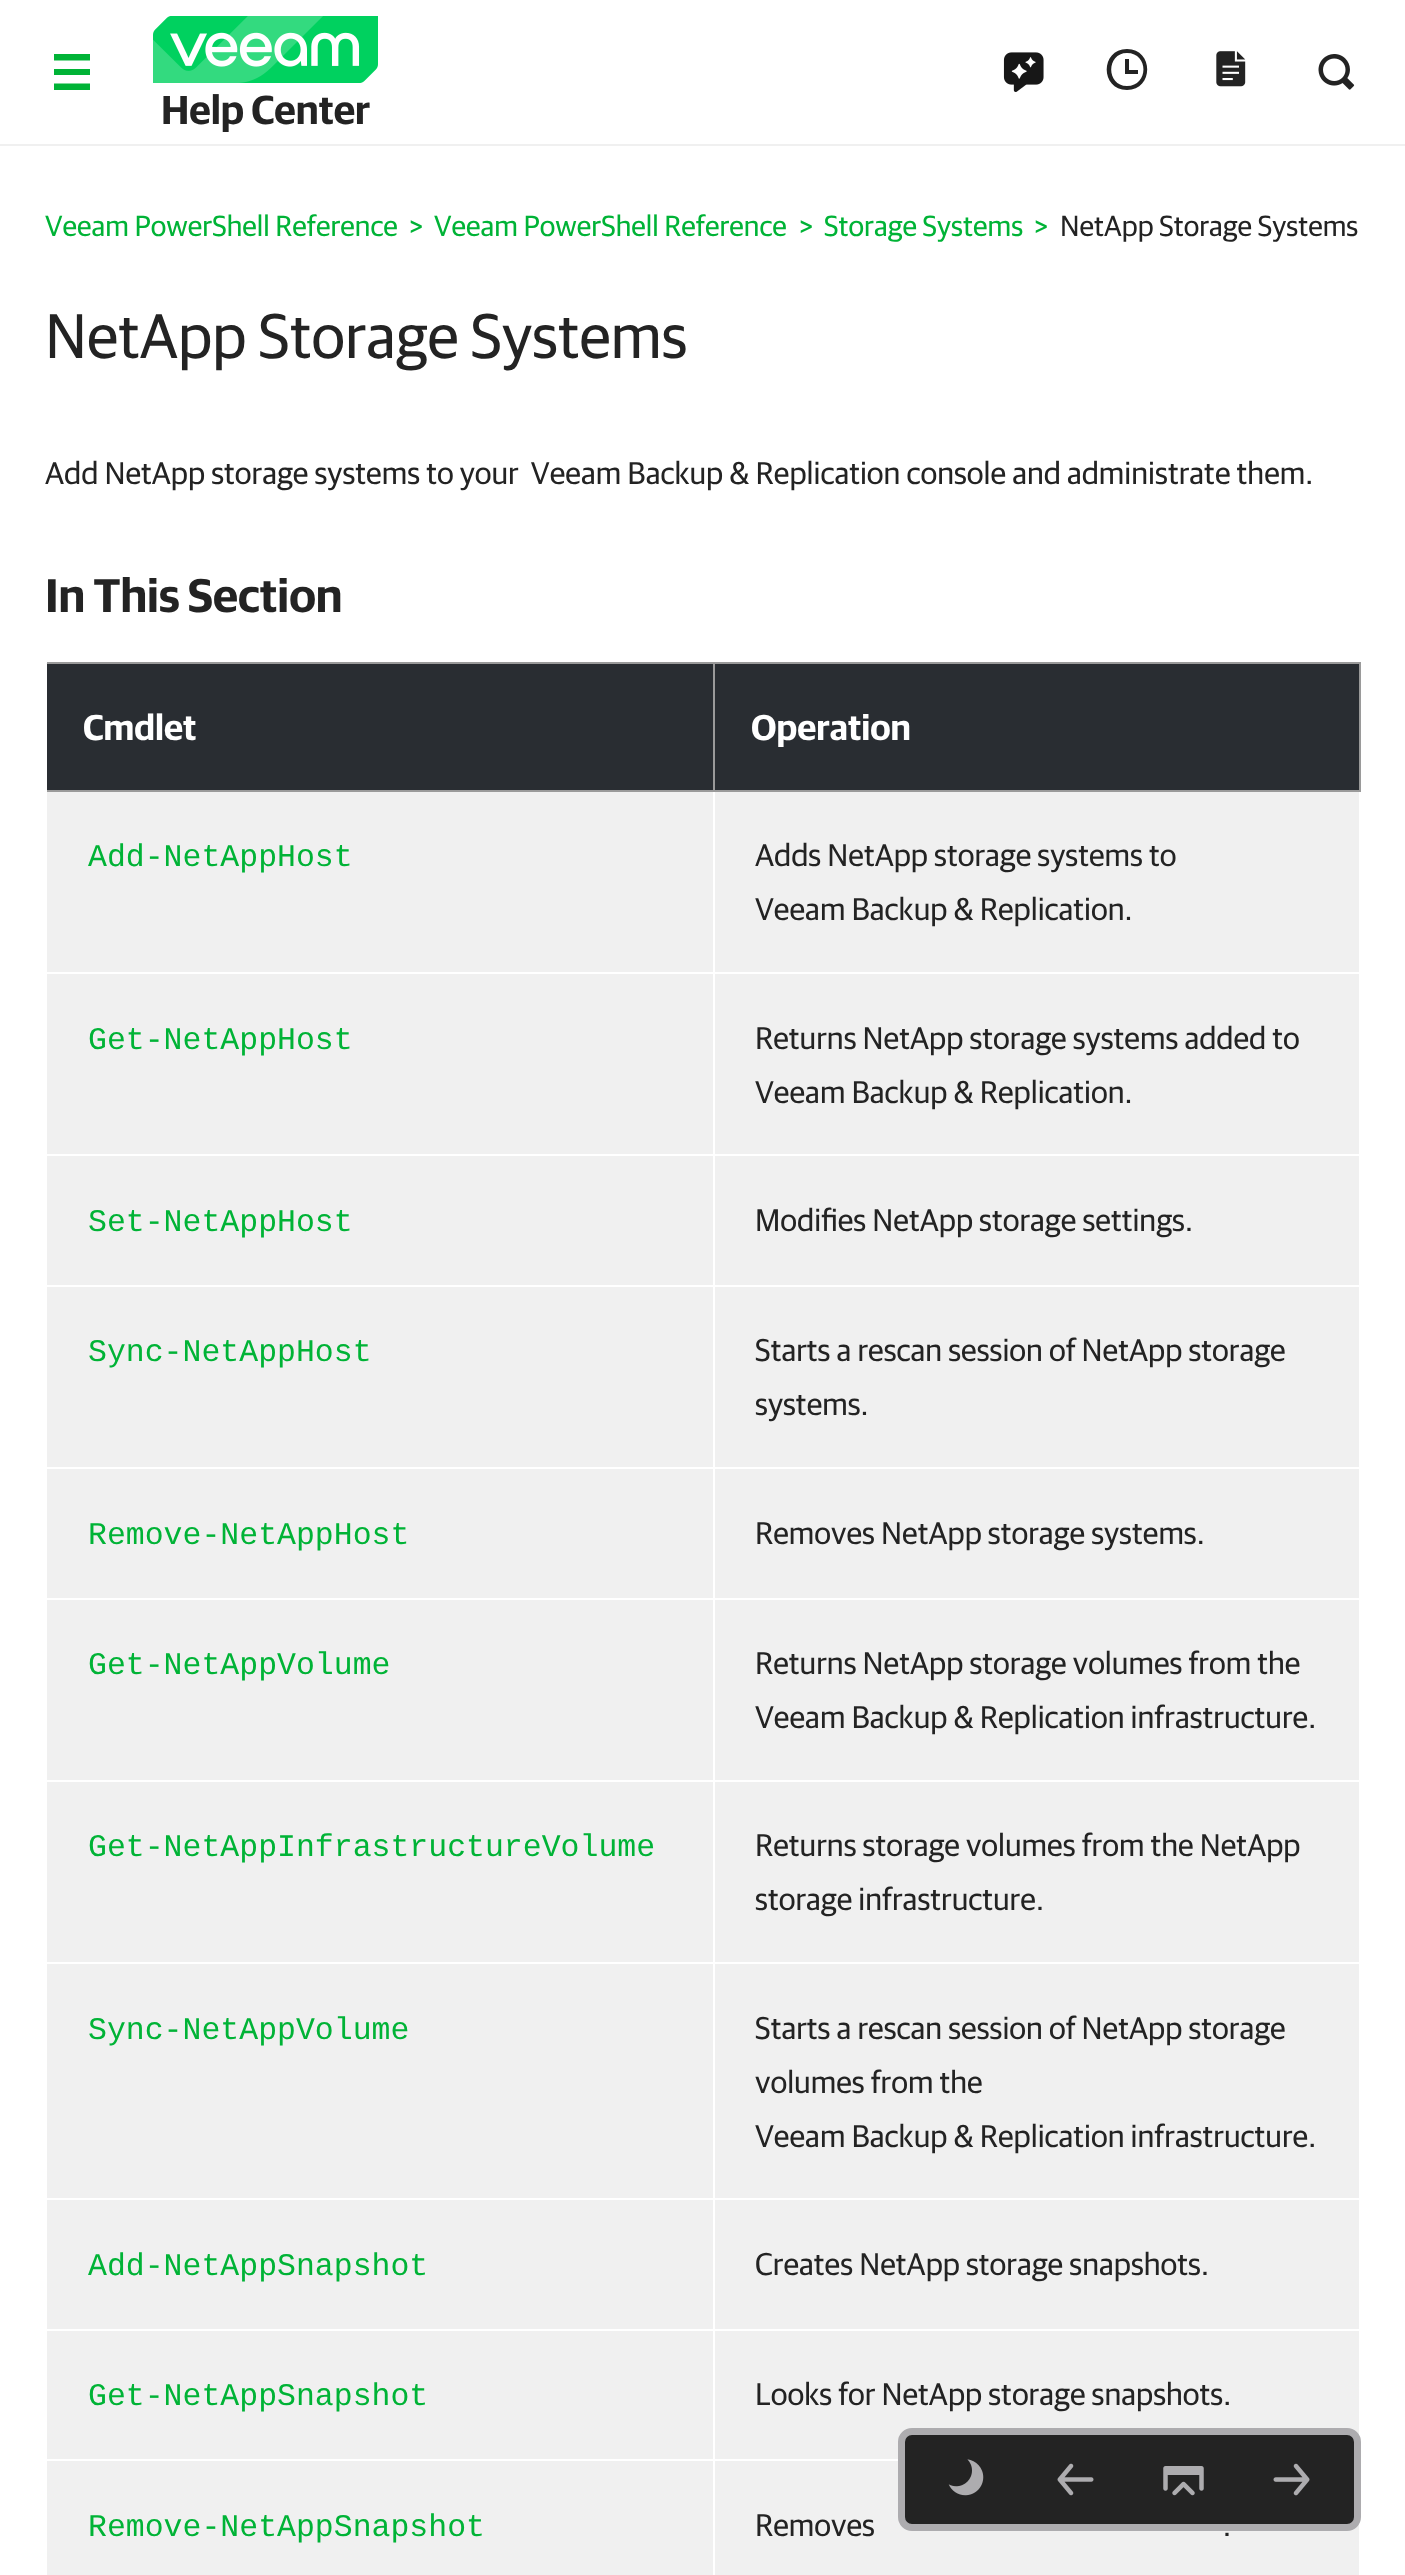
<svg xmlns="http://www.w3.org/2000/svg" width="1405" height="2575">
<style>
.a{font:600 40.5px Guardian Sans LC;fill:#232323}
.b{font:29.25px Guardian Sans LC;fill:#00b336}
.c{font:29.25px Guardian Sans LC;fill:#232323}
.d{font:63px Guardian Sans LC;fill:#232323}
.e{font:31.5px Guardian Sans LC;fill:#232323}
.f{font:600 47.25px Guardian Sans LC;fill:#232323}
.g{font:600 36px Guardian Sans LC;fill:#fff}
.h{font:31.5px Liberation Mono;fill:#00b336}
</style>
<rect width="100%" height="100%" fill="#fff"/>
<path fill="#f0f0f0" d="M0 144h1405v2H0z"/>
<image href="1.png" x="1003" y="52" width="41" height="40"/>
<path fill="#232323" d="M1127 90c-27 0-27-41 0-41c27 0 27 41 0 41zm0-4c22 0 22-33 0-33c-21 0-21 33 0 33zm2-16h9v4h-13v-15h4z"/>
<image href="2.png" x="1216" y="51" width="30" height="36"/>
<image href="3.png" x="1318" y="54" width="37" height="36"/>
<path fill="#00b336" fill-rule="evenodd" d="M54 54h36v6.5h-36zm0 15h36v6h-36zm36 14.5h-36v6.5h36z"/>
<image href="4.png" x="153" y="16" width="225" height="67"/>
<rect fill="#f0f0f0" x="45" y="662" width="1316" height="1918" rx="5"/>
<path fill="#fff" d="M45 664h2v1911H45z"/>
<path fill="#292d32" d="M47 664h1312v126H47z"/>
<path fill="#9a9a9a" d="M47 662h1314v2H47z"/>
<path fill="#9a9a9a" d="M713 662h2v130H713z"/>
<path fill="#9a9a9a" d="M47 790h669v2H47z"/>
<path fill="#9a9a9a" d="M1359 662h2v130H1359z"/>
<path fill="#9a9a9a" d="M716 790h645v2H716z"/>
<path fill="#fff" d="M713 792h2v1783H713z"/>
<path fill="#fff" d="M47 972h669v2H47z"/>
<path fill="#fff" d="M1359 792h2v1650H1359z"/>
<path fill="#fff" d="M716 972h645v2H716z"/>
<path fill="#fff" d="M47 1154h1314v2H47z"/>
<path fill="#fff" d="M47 1285h1314v2H47z"/>
<path fill="#fff" d="M47 1467h1314v2H47z"/>
<path fill="#fff" d="M47 1598h1314v2H47z"/>
<path fill="#fff" d="M47 1780h1314v2H47z"/>
<path fill="#fff" d="M47 1962h1314v2H47z"/>
<path fill="#fff" d="M47 2198h1314v2H47z"/>
<path fill="#fff" d="M47 2329h1314v2H47z"/>
<path fill="#fff" d="M47 2459h851v2H47z"/>
<path fill="#fff" d="M1359 2517h2v58H1359z"/>
<rect fill="#232323" stroke="#adacaf" stroke-width="7" x="901.5" y="2431.5" width="456" height="96" rx="10.5"/>
<image href="5.png" x="948" y="2459" width="36" height="37"/>
<image href="6.png" x="1057" y="2463" width="37" height="33"/>
<image href="7.png" x="1163" y="2466" width="41" height="30"/>
<image href="8.png" x="1273" y="2463" width="37" height="33"/>
<text class="a" x="161" y="124">Help Center</text>
<text class="b" x="45" y="236">Veeam PowerShell Reference</text>
<text class="b" x="409" y="236">&gt;</text>
<text class="b" x="434" y="236">Veeam PowerShell Reference</text>
<text class="b" x="799" y="236">&gt;</text>
<text class="b" x="824" y="236">Storage Systems</text>
<text class="b" x="1034" y="236">&gt;</text>
<text class="c" x="1060" y="236">NetApp Storage Systems</text>
<text class="d" x="45" y="358">NetApp Storage Systems</text>
<text class="e" xml:space="preserve" x="45" y="484">Add NetApp storage systems to your  Veeam Backup &amp; Replication console and administrate them.</text>
<text class="f" x="45" y="612">In This Section</text>
<text class="g" x="83" y="740">Cmdlet</text>
<text class="g" x="751" y="740">Operation</text>
<text class="h" x="88" y="866">Add-NetAppHost</text>
<text class="e" x="755" y="866">Adds NetApp storage systems to</text>
<text class="e" x="755" y="920">Veeam Backup &amp; Replication.</text>
<text class="h" x="88" y="1049">Get-NetAppHost</text>
<text class="e" x="755" y="1049">Returns NetApp storage systems added to</text>
<text class="e" x="755" y="1103">Veeam Backup &amp; Replication.</text>
<text class="h" x="88" y="1231">Set-NetAppHost</text>
<text class="e" x="755" y="1231">Modifies NetApp storage settings.</text>
<text class="h" x="88" y="1361">Sync-NetAppHost</text>
<text class="e" x="755" y="1361">Starts a rescan session of NetApp storage</text>
<text class="e" x="755" y="1415">systems.</text>
<text class="h" x="88" y="1544">Remove-NetAppHost</text>
<text class="e" x="755" y="1544">Removes NetApp storage systems.</text>
<text class="h" x="88" y="1674">Get-NetAppVolume</text>
<text class="e" x="755" y="1674">Returns NetApp storage volumes from the</text>
<text class="e" x="755" y="1728">Veeam Backup &amp; Replication infrastructure.</text>
<text class="h" x="88" y="1856">Get-NetAppInfrastructureVolume</text>
<text class="e" x="755" y="1856">Returns storage volumes from the NetApp</text>
<text class="e" x="755" y="1910">storage infrastructure.</text>
<text class="h" x="88" y="2039">Sync-NetAppVolume</text>
<text class="e" x="755" y="2039">Starts a rescan session of NetApp storage</text>
<text class="e" x="755" y="2093">volumes from the</text>
<text class="e" x="755" y="2147">Veeam Backup &amp; Replication infrastructure.</text>
<text class="h" x="88" y="2275">Add-NetAppSnapshot</text>
<text class="e" x="755" y="2275">Creates NetApp storage snapshots.</text>
<text class="h" x="88" y="2405">Get-NetAppSnapshot</text>
<text class="e" x="755" y="2405">Looks for NetApp storage snapshots.</text>
<text class="h" x="88" y="2536">Remove-NetAppSnapshot</text>
<text class="e" x="755" y="2536">Removes</text>
<text class="e" x="1223" y="2536">.</text>
</svg>
